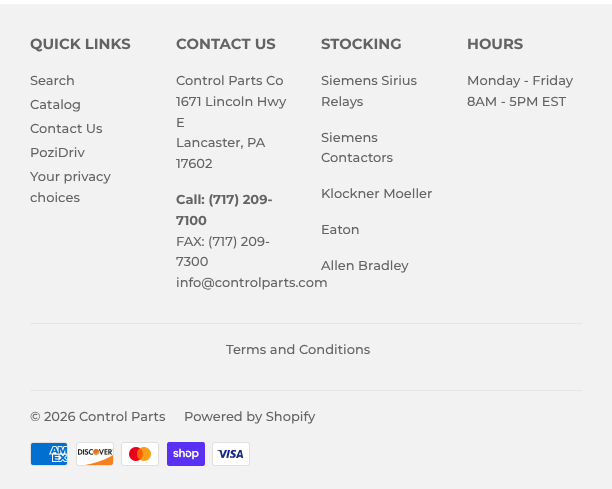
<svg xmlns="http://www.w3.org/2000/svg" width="612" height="489">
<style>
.a{font:bold 14.75px Montserrat;fill:#636363}
.b{font:500 13px Montserrat;fill:#636363}
.c{font:bold 13px Montserrat;fill:#636363}
</style>
<rect width="100%" height="100%" fill="#fff"/>
<path fill="#f2f2f2" d="M0 4h612v485H0z"/>
<path fill="#e5e5e5" d="M30 323h552v1H30z"/>
<path fill="#e5e5e5" d="M30 390h552v1H30z"/>
<image href="1.png" x="30" y="442" width="38" height="24"/>
<image href="2.png" x="76" y="442" width="38" height="24"/>
<image href="3.png" x="121" y="442" width="38" height="24"/>
<image href="4.png" x="167" y="442" width="38" height="24"/>
<image href="5.png" x="212" y="442" width="38" height="24"/>
<text class="a" x="30" y="49">QUICK LINKS</text>
<text class="b" x="30" y="85">Search</text>
<text class="b" x="30" y="109">Catalog</text>
<text class="b" x="30" y="133">Contact Us</text>
<text class="b" x="30" y="157">PoziDriv</text>
<text class="b" x="30" y="181">Your privacy</text>
<text class="b" x="30" y="202">choices</text>
<text class="a" x="176" y="49">CONTACT US</text>
<text class="b" x="176" y="85">Control Parts Co</text>
<text class="b" x="176" y="106">1671 Lincoln Hwy</text>
<text class="b" x="176" y="127">E</text>
<text class="b" x="176" y="147">Lancaster, PA</text>
<text class="b" x="176" y="168">17602</text>
<text class="c" x="176" y="204">Call: (717) 209-</text>
<text class="c" x="176" y="225">7100</text>
<text class="b" x="176" y="246">FAX: (717) 209-</text>
<text class="b" x="176" y="266">7300</text>
<text class="b" x="176" y="287">info@controlparts.com</text>
<text class="a" x="321" y="49">STOCKING</text>
<text class="b" x="321" y="85">Siemens Sirius</text>
<text class="b" x="321" y="106">Relays</text>
<text class="b" x="321" y="142">Siemens</text>
<text class="b" x="321" y="162">Contactors</text>
<text class="b" x="321" y="198">Klockner Moeller</text>
<text class="b" x="321" y="234">Eaton</text>
<text class="b" x="321" y="270">Allen Bradley</text>
<text class="a" x="467" y="49">HOURS</text>
<text class="b" x="467" y="85">Monday - Friday</text>
<text class="b" x="467" y="106">8AM - 5PM EST</text>
<text class="b" x="226" y="354">Terms and Conditions</text>
<text class="b" x="30" y="421">© 2026 Control Parts</text>
<text class="b" x="184" y="421">Powered by Shopify</text>
</svg>
